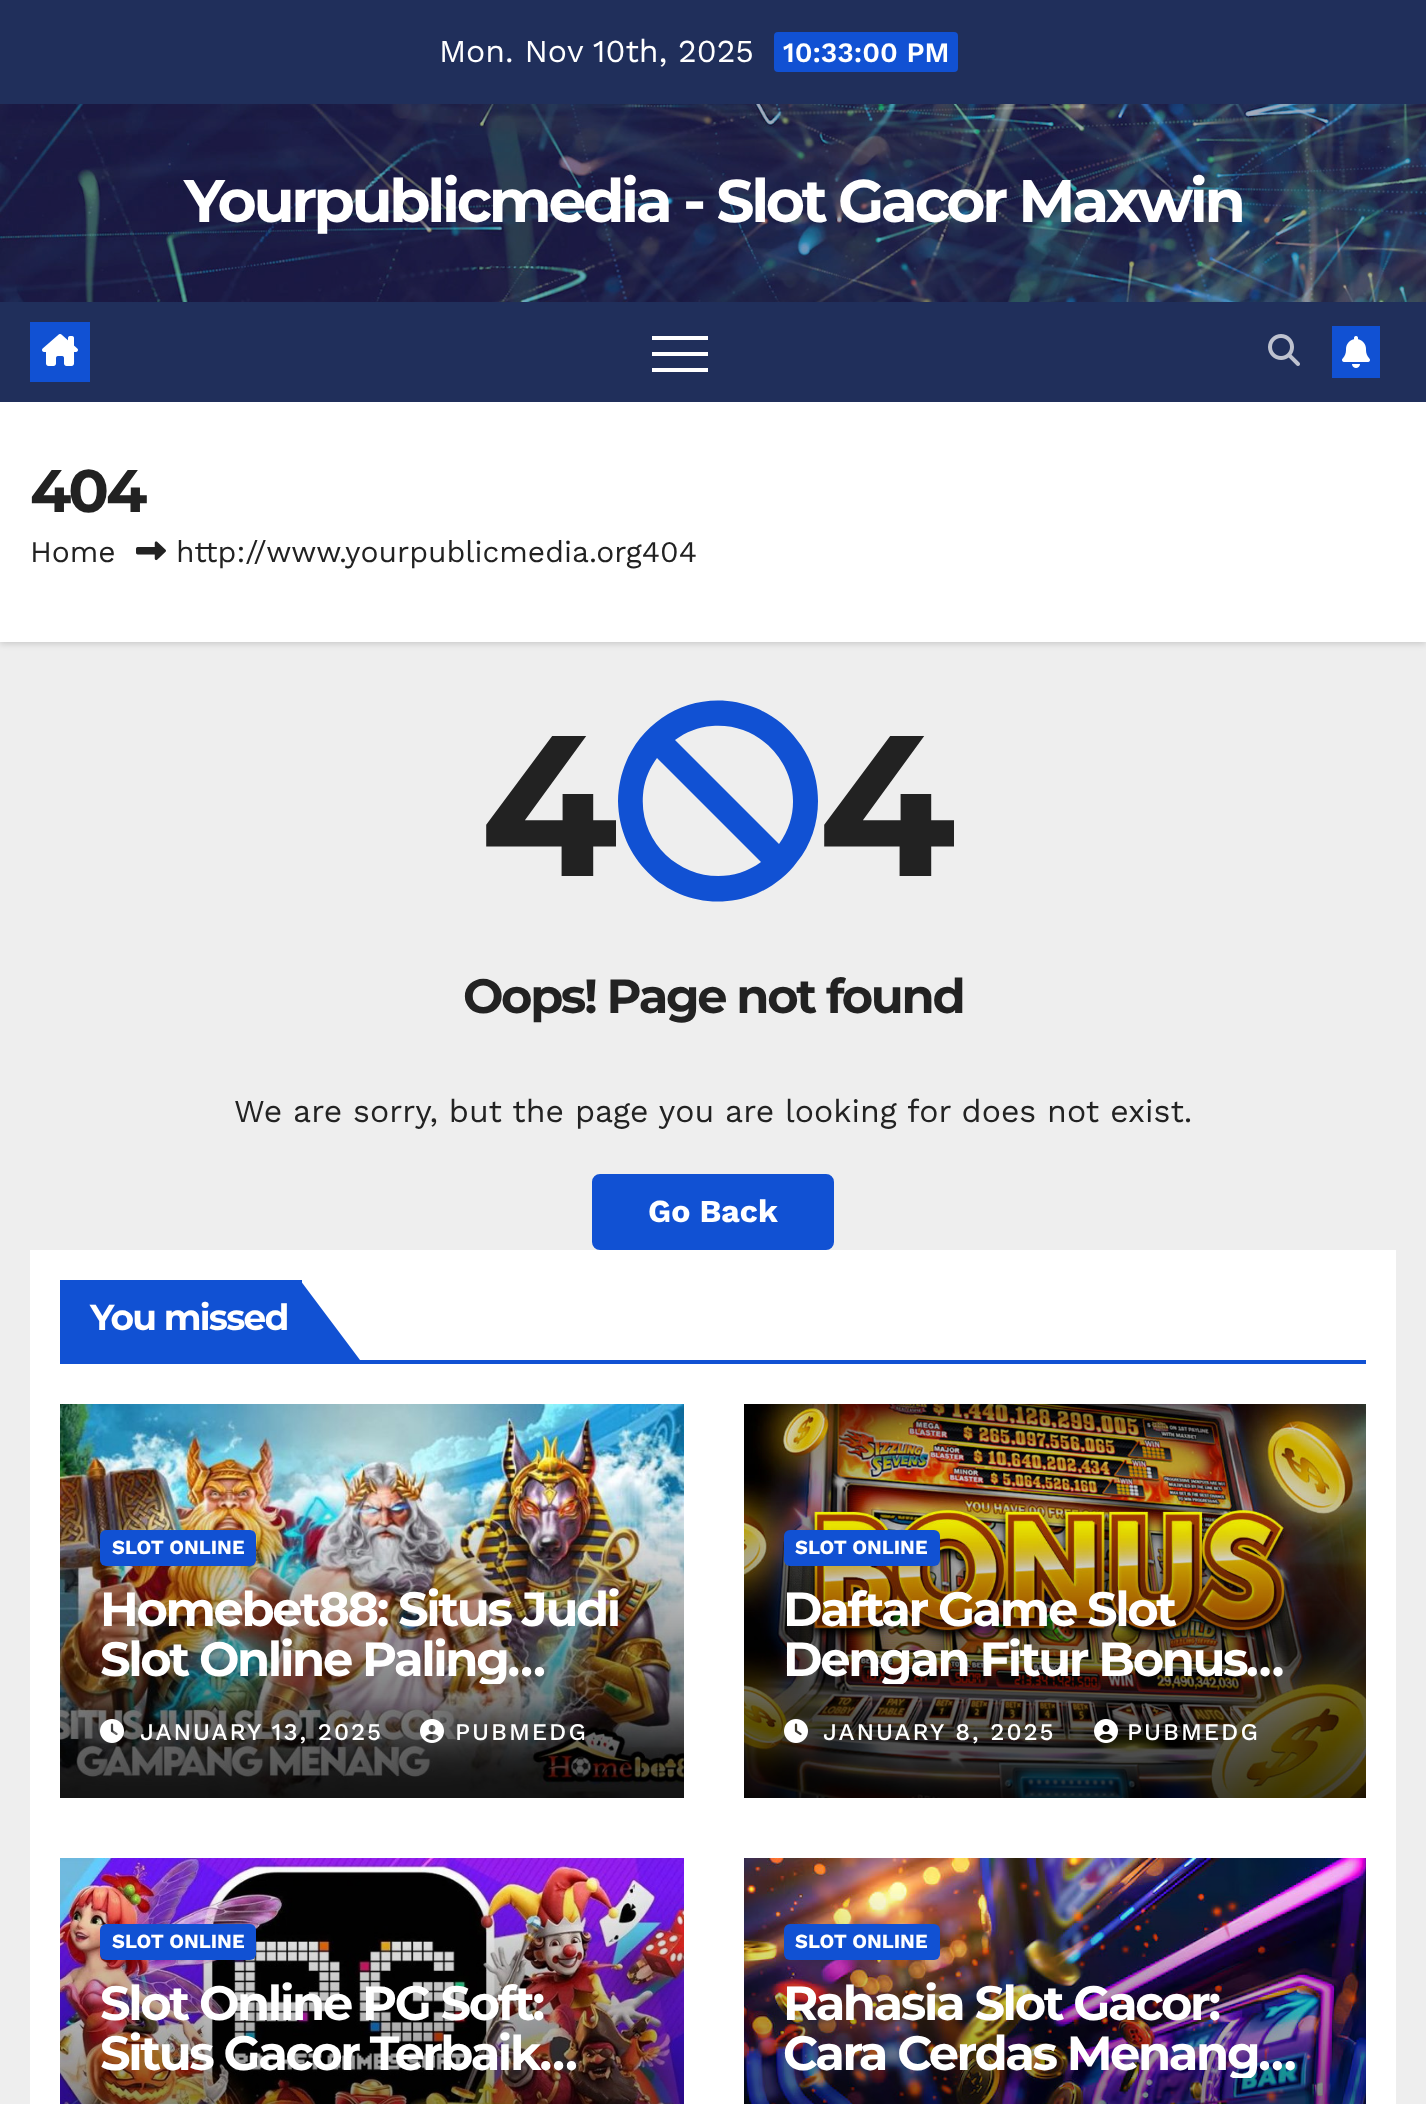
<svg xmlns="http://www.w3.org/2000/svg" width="1426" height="2104">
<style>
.a{font:32px Work Sans;fill:#fff}
.b{font:600 28px Work Sans;fill:#fff}
.c{font:bold 60px Montserrat;letter-spacing:-3.4px;fill:#fff}
.d{font:bold 60px Montserrat;letter-spacing:-3px;fill:#222}
.e{font:30px Work Sans;fill:#222}
.f{font:bold 200px Montserrat;letter-spacing:-10px;fill:#222}
.g{font:bold 48px Montserrat;letter-spacing:-2.4px;fill:#222}
.h{font:32px Work Sans;fill:#222}
.i{font:bold 32px Work Sans;fill:#fff}
.j{font:bold 36px Montserrat;letter-spacing:-1.75px;fill:#fff}
.k{font:bold 20px Work Sans;fill:#fff}
.l{font:bold 48px Montserrat;letter-spacing:-2.4px;fill:#fff}
.m{font:500 24px Work Sans;letter-spacing:2px;fill:#fff}
</style>
<defs>
<clipPath id="clip1"><path d="M100 1584h544v100H100z"/></clipPath>
<clipPath id="clip2"><path d="M784 1584h542v100H784z"/></clipPath>
<clipPath id="clip3"><path d="M784 1978h542v100H784z"/></clipPath>
</defs>
<rect width="100%" height="100%" fill="#eee"/>
<path fill="#202f5b" d="M0 0h1426v104H0z"/>
<rect fill="#1151d3" x="774" y="32" width="184" height="40" rx="4"/>
<image href="1.png" x="0" y="104" width="1426" height="198"/>
<path fill="#00000026" filter="blur(3px)" d="M0 404h1426v240H0z"/>
<path fill="#202f5b" d="M0 302h1426v100H0z"/>
<path fill="#1151d3" d="M30 322h60v60H30z"/>
<image href="2.png" x="42" y="334" width="36" height="32"/>
<path fill="#fff" d="M652 336h56v4H652z"/>
<path fill="#fff" d="M652 352h56v4H652z"/>
<path fill="#fff" d="M652 368h56v4H652z"/>
<image href="3.png" x="1268" y="334" width="32" height="32"/>
<path fill="#1151d3" d="M1332 326h48v52H1332z"/>
<image href="4.png" x="1342" y="336" width="28" height="32"/>
<path fill="#fff" d="M0 402h1426v240H0z"/>
<image href="5.png" x="136" y="541" width="30" height="20"/>
<path fill="#1151d3" d="M761 862l-104-104c-8 11-13 23-14 37c-5 63 67 104 118 67zm18-18c37-51-4-123-67-118c-14 1-26 6-37 14zm-161-43c1-71 71-120 138-93c16 7 31 18 41 32c14 17 21 39 21 61c0 22-7 44-21 61c-10 14-25 25-41 32c-67 27-137-22-138-93z"/>
<rect fill="#1151d3" stroke="#1151d3" stroke-width="4" x="594" y="1176" width="238" height="72" rx="6"/>
<path fill="#fff" d="M30 1250h1366v854H30z"/>
<path fill="#1151d3" d="M60 1360h1306v4H60z"/>
<path fill="#1151d3" d="M60 1280h242v80H60z"/>
<path fill="#1151d3" d="M300 1360v-80l60 80z"/>
<image href="6.png" x="60" y="1404" width="624" height="394"/>
<rect fill="#1151d3" x="100" y="1530" width="156" height="36" rx="6"/>
<image href="7.png" x="100" y="1719" width="24" height="24"/>
<image href="8.png" x="420" y="1719" width="24" height="24"/>
<image href="9.png" x="744" y="1404" width="622" height="394"/>
<rect fill="#1151d3" x="784" y="1530" width="156" height="36" rx="6"/>
<image href="10.png" x="784" y="1719" width="24" height="24"/>
<image href="11.png" x="1094" y="1719" width="24" height="24"/>
<image href="12.png" x="60" y="1858" width="624" height="246"/>
<rect fill="#1151d3" x="100" y="1924" width="156" height="36" rx="6"/>
<image href="13.png" x="744" y="1858" width="622" height="246"/>
<rect fill="#1151d3" x="784" y="1924" width="156" height="36" rx="6"/>
<text class="a" x="439" y="62">Mon. Nov 10th, 2025</text>
<text class="b" x="783" y="62">10:33:00 PM</text>
<text class="c" x="184" y="222">Yourpublicmedia - Slot Gacor Maxwin</text>
<text class="d" x="30" y="512">404</text>
<text class="e" x="30" y="562">Home</text>
<text class="e" x="176" y="562">http://www.yourpublicmedia.org404</text>
<text class="f" x="480" y="876">4</text>
<text class="f" x="818" y="876">4</text>
<text class="g" x="463" y="1013">Oops! Page not found</text>
<text class="h" x="234" y="1122">We are sorry, but the page you are looking for does not exist.</text>
<text class="i" x="648" y="1222">Go Back</text>
<text class="j" x="90" y="1330">You missed</text>
<text class="k" x="112" y="1554">SLOT ONLINE</text>
<text class="l" x="100" y="1626">Homebet88: Situs Judi</text>
<g clip-path="url(#clip1)">
<text class="l" x="100" y="1676">Slot Online Paling…</text>
</g>
<text class="m" x="140" y="1740">JANUARY 13, 2025</text>
<text class="m" x="455" y="1740">PUBMEDG</text>
<text class="k" x="795" y="1554">SLOT ONLINE</text>
<text class="l" x="783" y="1626">Daftar Game Slot</text>
<g clip-path="url(#clip2)">
<text class="l" x="783" y="1676">Dengan Fitur Bonus…</text>
</g>
<text class="m" x="823" y="1740">JANUARY 8, 2025</text>
<text class="m" x="1127" y="1740">PUBMEDG</text>
<text class="k" x="112" y="1948">SLOT ONLINE</text>
<text class="l" x="100" y="2020">Slot Online PG Soft:</text>
<text class="l" x="100" y="2070">Situs Gacor Terbaik…</text>
<text class="k" x="795" y="1948">SLOT ONLINE</text>
<text class="l" x="783" y="2020">Rahasia Slot Gacor:</text>
<g clip-path="url(#clip3)">
<text class="l" x="783" y="2070">Cara Cerdas Menang…</text>
</g>
</svg>
